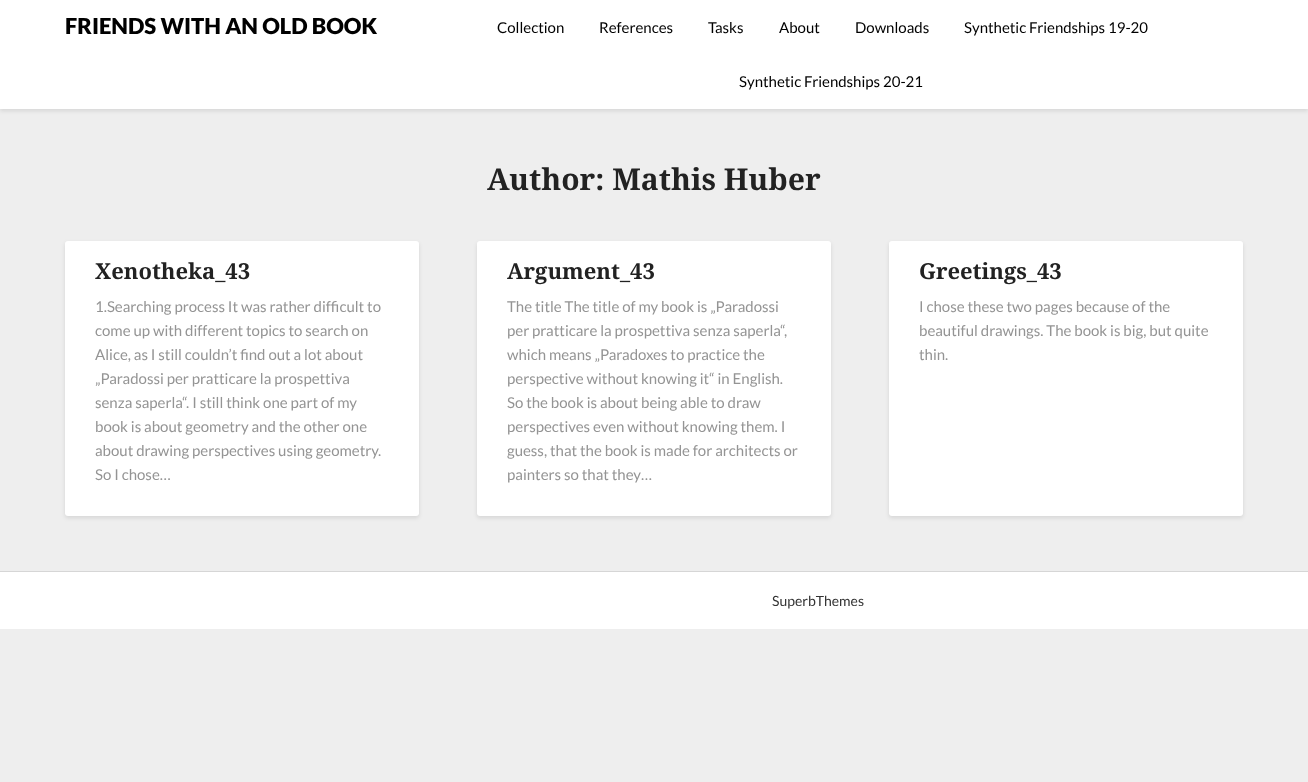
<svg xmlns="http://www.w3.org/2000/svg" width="1308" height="782">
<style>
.a{font:900 22px Lato;fill:#000}
.b{font:15px Lato;fill:#000}
.c{font:bold 30px Noto Serif;fill:#222}
.d{font:bold 22px Noto Serif;fill:#222}
.e{font:15px Lato;fill:#949494}
.f{font:14px Lato;fill:#333}
</style>
<rect width="100%" height="100%" fill="#eee"/>
<path fill="#0000001a" filter="blur(2px)" d="M0 2h1308v109H0z"/>
<path fill="#fff" d="M0 0h1308v109H0z"/>
<rect fill="#0000001a" filter="blur(2px)" x="65" y="243" width="354" height="275" rx="3"/>
<rect fill="#fff" x="65" y="241" width="354" height="275" rx="3"/>
<rect fill="#0000001a" filter="blur(2px)" x="477" y="243" width="354" height="275" rx="3"/>
<rect fill="#fff" x="477" y="241" width="354" height="275" rx="3"/>
<rect fill="#0000001a" filter="blur(2px)" x="889" y="243" width="354" height="275" rx="3"/>
<rect fill="#fff" x="889" y="241" width="354" height="275" rx="3"/>
<path fill="#fff" d="M0 572h1308v57H0z"/>
<path fill="#d6d6d6" d="M0 571h1308v1H0z"/>
<text class="a" x="65" y="34">FRIENDS WITH AN OLD BOOK</text>
<text class="b" x="497" y="33">Collection</text>
<text class="b" x="599" y="33">References</text>
<text class="b" x="708" y="33">Tasks</text>
<text class="b" x="779" y="33">About</text>
<text class="b" x="855" y="33">Downloads</text>
<text class="b" x="964" y="33">Synthetic Friendships 19-20</text>
<text class="b" x="739" y="87">Synthetic Friendships 20-21</text>
<text class="c" x="487" y="190">Author: Mathis Huber</text>
<text class="d" x="95" y="279">Xenotheka_43</text>
<text class="e" x="95" y="312">1.Searching process It was rather difficult to</text>
<text class="e" x="95" y="336">come up with different topics to search on</text>
<text class="e" x="95" y="360">Alice, as I still couldn’t find out a lot about</text>
<text class="e" x="95" y="384">„Paradossi per pratticare la prospettiva</text>
<text class="e" x="95" y="408">senza saperla“. I still think one part of my</text>
<text class="e" x="95" y="432">book is about geometry and the other one</text>
<text class="e" x="95" y="456">about drawing perspectives using geometry.</text>
<text class="e" x="95" y="480">So I chose…</text>
<text class="d" x="507" y="279">Argument_43</text>
<text class="e" x="507" y="312">The title The title of my book is „Paradossi</text>
<text class="e" x="507" y="336">per pratticare la prospettiva senza saperla“,</text>
<text class="e" x="507" y="360">which means „Paradoxes to practice the</text>
<text class="e" x="507" y="384">perspective without knowing it“ in English.</text>
<text class="e" x="507" y="408">So the book is about being able to draw</text>
<text class="e" x="507" y="432">perspectives even without knowing them. I</text>
<text class="e" x="507" y="456">guess, that the book is made for architects or</text>
<text class="e" x="507" y="480">painters so that they…</text>
<text class="d" x="919" y="279">Greetings_43</text>
<text class="e" x="919" y="312">I chose these two pages because of the</text>
<text class="e" x="919" y="336">beautiful drawings. The book is big, but quite</text>
<text class="e" x="919" y="360">thin.</text>
<text class="f" x="772" y="606">SuperbThemes</text>
</svg>
